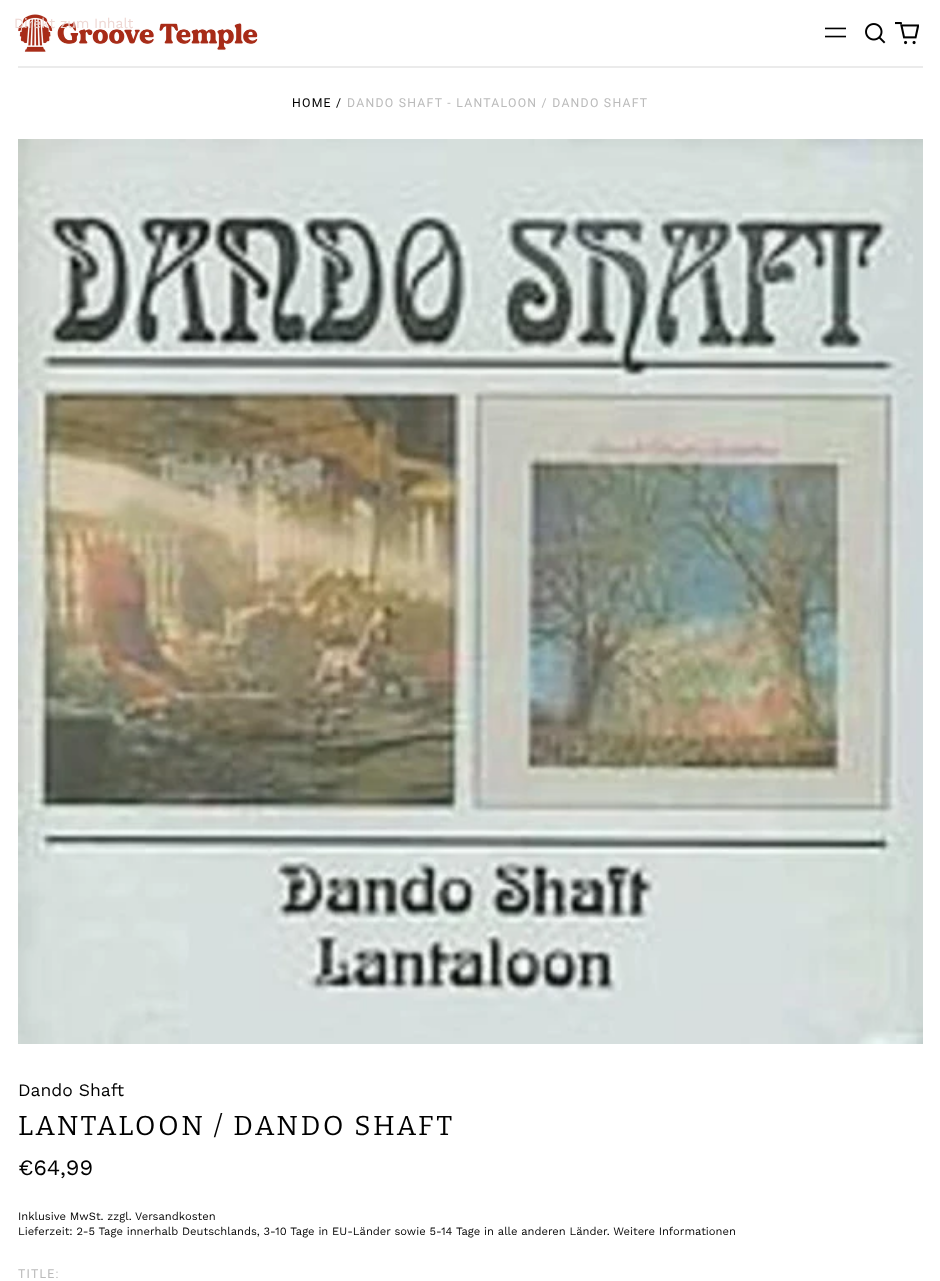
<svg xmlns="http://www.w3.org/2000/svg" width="940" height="1281">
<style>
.a{font:14px Work Sans;fill:#eed7d3}
.b{font:12.25px Roboto;letter-spacing:1.25px;fill:#000}
.c{font:12.25px Roboto;letter-spacing:1.25px;fill:#bbb}
.d{font:17.5px Work Sans;fill:#000}
.e{font:27.3px Bitter;letter-spacing:2.75px;fill:#000}
.f{font:22px Work Sans;fill:#000}
.g{font:11.2px Work Sans;fill:#000}
</style>
<rect width="100%" height="100%" fill="#fff"/>
<path fill="#ebebeb" d="M18 66h905v2H18z"/>
<image href="1.png" x="18" y="14" width="240" height="38"/>
<image href="2.png" x="825" y="27" width="21" height="11"/>
<image href="3.png" x="865" y="23" width="21" height="21"/>
<image href="4.png" x="895" y="22" width="24" height="23"/>
<image href="5.png" x="18" y="139" width="905" height="905"/>
<text class="a" x="14" y="28">Direkt zum Inhalt</text>
<text class="b" x="292" y="107">HOME /</text>
<text class="c" x="347" y="107">DANDO SHAFT - LANTALOON / DANDO SHAFT</text>
<text class="d" x="18" y="1096">Dando Shaft</text>
<text class="e" x="18" y="1135">LANTALOON / DANDO SHAFT</text>
<text class="f" x="18" y="1175">€64,99</text>
<text class="g" x="18" y="1220">Inklusive MwSt. zzgl. Versandkosten</text>
<text class="g" x="18" y="1235">Lieferzeit: 2-5 Tage innerhalb Deutschlands, 3-10 Tage in EU-Länder sowie 5-14 Tage in alle anderen Länder. Weitere Informationen</text>
<text class="c" x="18" y="1278">TITLE:</text>
</svg>
